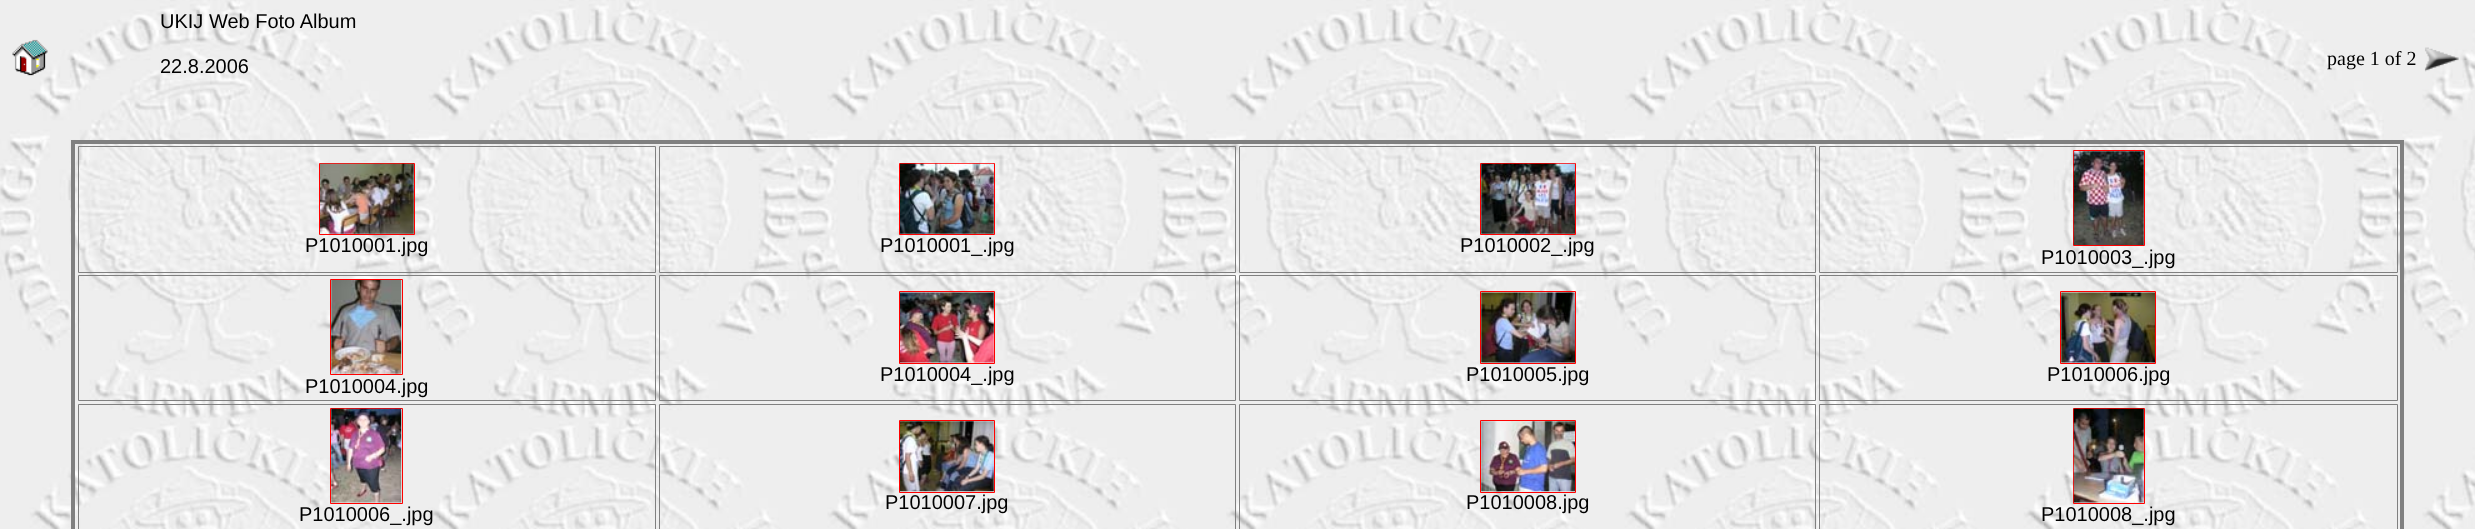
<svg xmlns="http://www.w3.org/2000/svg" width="2475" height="529">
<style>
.a{font:20px Liberation Sans;fill:#000}
.b{font:20px Liberation Serif;fill:#000}
</style>
<rect width="100%" height="100%" fill="#fff"/>
<image href="1.png" x="0" y="0" width="2475" height="529"/>
<image href="2.png" x="12" y="39" width="36" height="37"/>
<image href="3.png" x="2424" y="47" width="35" height="25"/>
<path fill="none" stroke="#808080" stroke-width="4" d="M73 142h2329v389H73z"/>
<path fill="none" stroke="#808080" d="M78.5 146.5h577v126H78.5z"/>
<path fill="none" stroke="#f00" d="M319.5 163.5h95v71H319.5z"/>
<image href="4.png" x="320" y="163" width="94" height="71"/>
<path fill="none" stroke="#808080" d="M659.5 146.5h576v126H659.5z"/>
<path fill="none" stroke="#f00" d="M899.5 163.5h95v71H899.5z"/>
<image href="5.png" x="900" y="163" width="94" height="71"/>
<path fill="none" stroke="#808080" d="M1239.5 146.5h576v126H1239.5z"/>
<path fill="none" stroke="#f00" d="M1480.5 163.5h95v71H1480.5z"/>
<image href="6.png" x="1481" y="163" width="94" height="71"/>
<path fill="none" stroke="#808080" d="M1819.5 146.5h578v126H1819.5z"/>
<path fill="none" stroke="#f00" d="M2073.5 150.5h71v95H2073.5z"/>
<image href="7.png" x="2073" y="151" width="71" height="94"/>
<path fill="none" stroke="#808080" d="M659.5 275.5h576v125H659.5z"/>
<path fill="none" stroke="#f00" d="M899.5 291.5h95v72H899.5z"/>
<image href="8.png" x="900" y="292" width="94" height="71"/>
<path fill="none" stroke="#808080" d="M1239.5 275.5h576v125H1239.5z"/>
<path fill="none" stroke="#f00" d="M1480.5 291.5h95v72H1480.5z"/>
<image href="9.png" x="1481" y="292" width="94" height="71"/>
<path fill="none" stroke="#808080" d="M1819.5 275.5h578v125H1819.5z"/>
<path fill="none" stroke="#f00" d="M2060.5 291.5h95v72H2060.5z"/>
<image href="10.png" x="2061" y="292" width="94" height="71"/>
<path fill="none" stroke="#808080" d="M78.5 275.5h577v125H78.5z"/>
<path fill="none" stroke="#f00" d="M330.5 279.5h72v95H330.5z"/>
<image href="11.png" x="331" y="280" width="71" height="94"/>
<path fill="none" stroke="#808080" d="M659.5 404.5h576v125H659.5z"/>
<path fill="none" stroke="#f00" d="M899.5 420.5h95v72H899.5z"/>
<image href="12.png" x="900" y="421" width="94" height="71"/>
<path fill="none" stroke="#808080" d="M1239.5 404.5h576v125H1239.5z"/>
<path fill="none" stroke="#f00" d="M1480.5 420.5h95v72H1480.5z"/>
<image href="13.png" x="1481" y="421" width="94" height="71"/>
<path fill="none" stroke="#808080" d="M78.5 404.5h577v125H78.5z"/>
<path fill="none" stroke="#f00" d="M330.5 408.5h72v95H330.5z"/>
<image href="14.png" x="331" y="408" width="71" height="95"/>
<path fill="none" stroke="#808080" d="M1819.5 404.5h578v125H1819.5z"/>
<path fill="none" stroke="#f00" d="M2073.5 408.5h71v95H2073.5z"/>
<image href="15.png" x="2073" y="408" width="71" height="95"/>
<text class="a" x="160" y="28">UKIJ Web Foto Album</text>
<text class="a" x="160" y="73">22.8.2006</text>
<text class="b" x="2327" y="65">page 1 of 2</text>
<text class="a" x="305" y="252">P1010001.jpg</text>
<text class="a" x="880" y="252">P1010001_.jpg</text>
<text class="a" x="1460" y="252">P1010002_.jpg</text>
<text class="a" x="2041" y="264">P1010003_.jpg</text>
<text class="a" x="880" y="381">P1010004_.jpg</text>
<text class="a" x="1466" y="381">P1010005.jpg</text>
<text class="a" x="2047" y="381">P1010006.jpg</text>
<text class="a" x="305" y="393">P1010004.jpg</text>
<text class="a" x="885" y="509">P1010007.jpg</text>
<text class="a" x="1466" y="509">P1010008.jpg</text>
<text class="a" x="299" y="521">P1010006_.jpg</text>
<text class="a" x="2041" y="521">P1010008_.jpg</text>
</svg>
